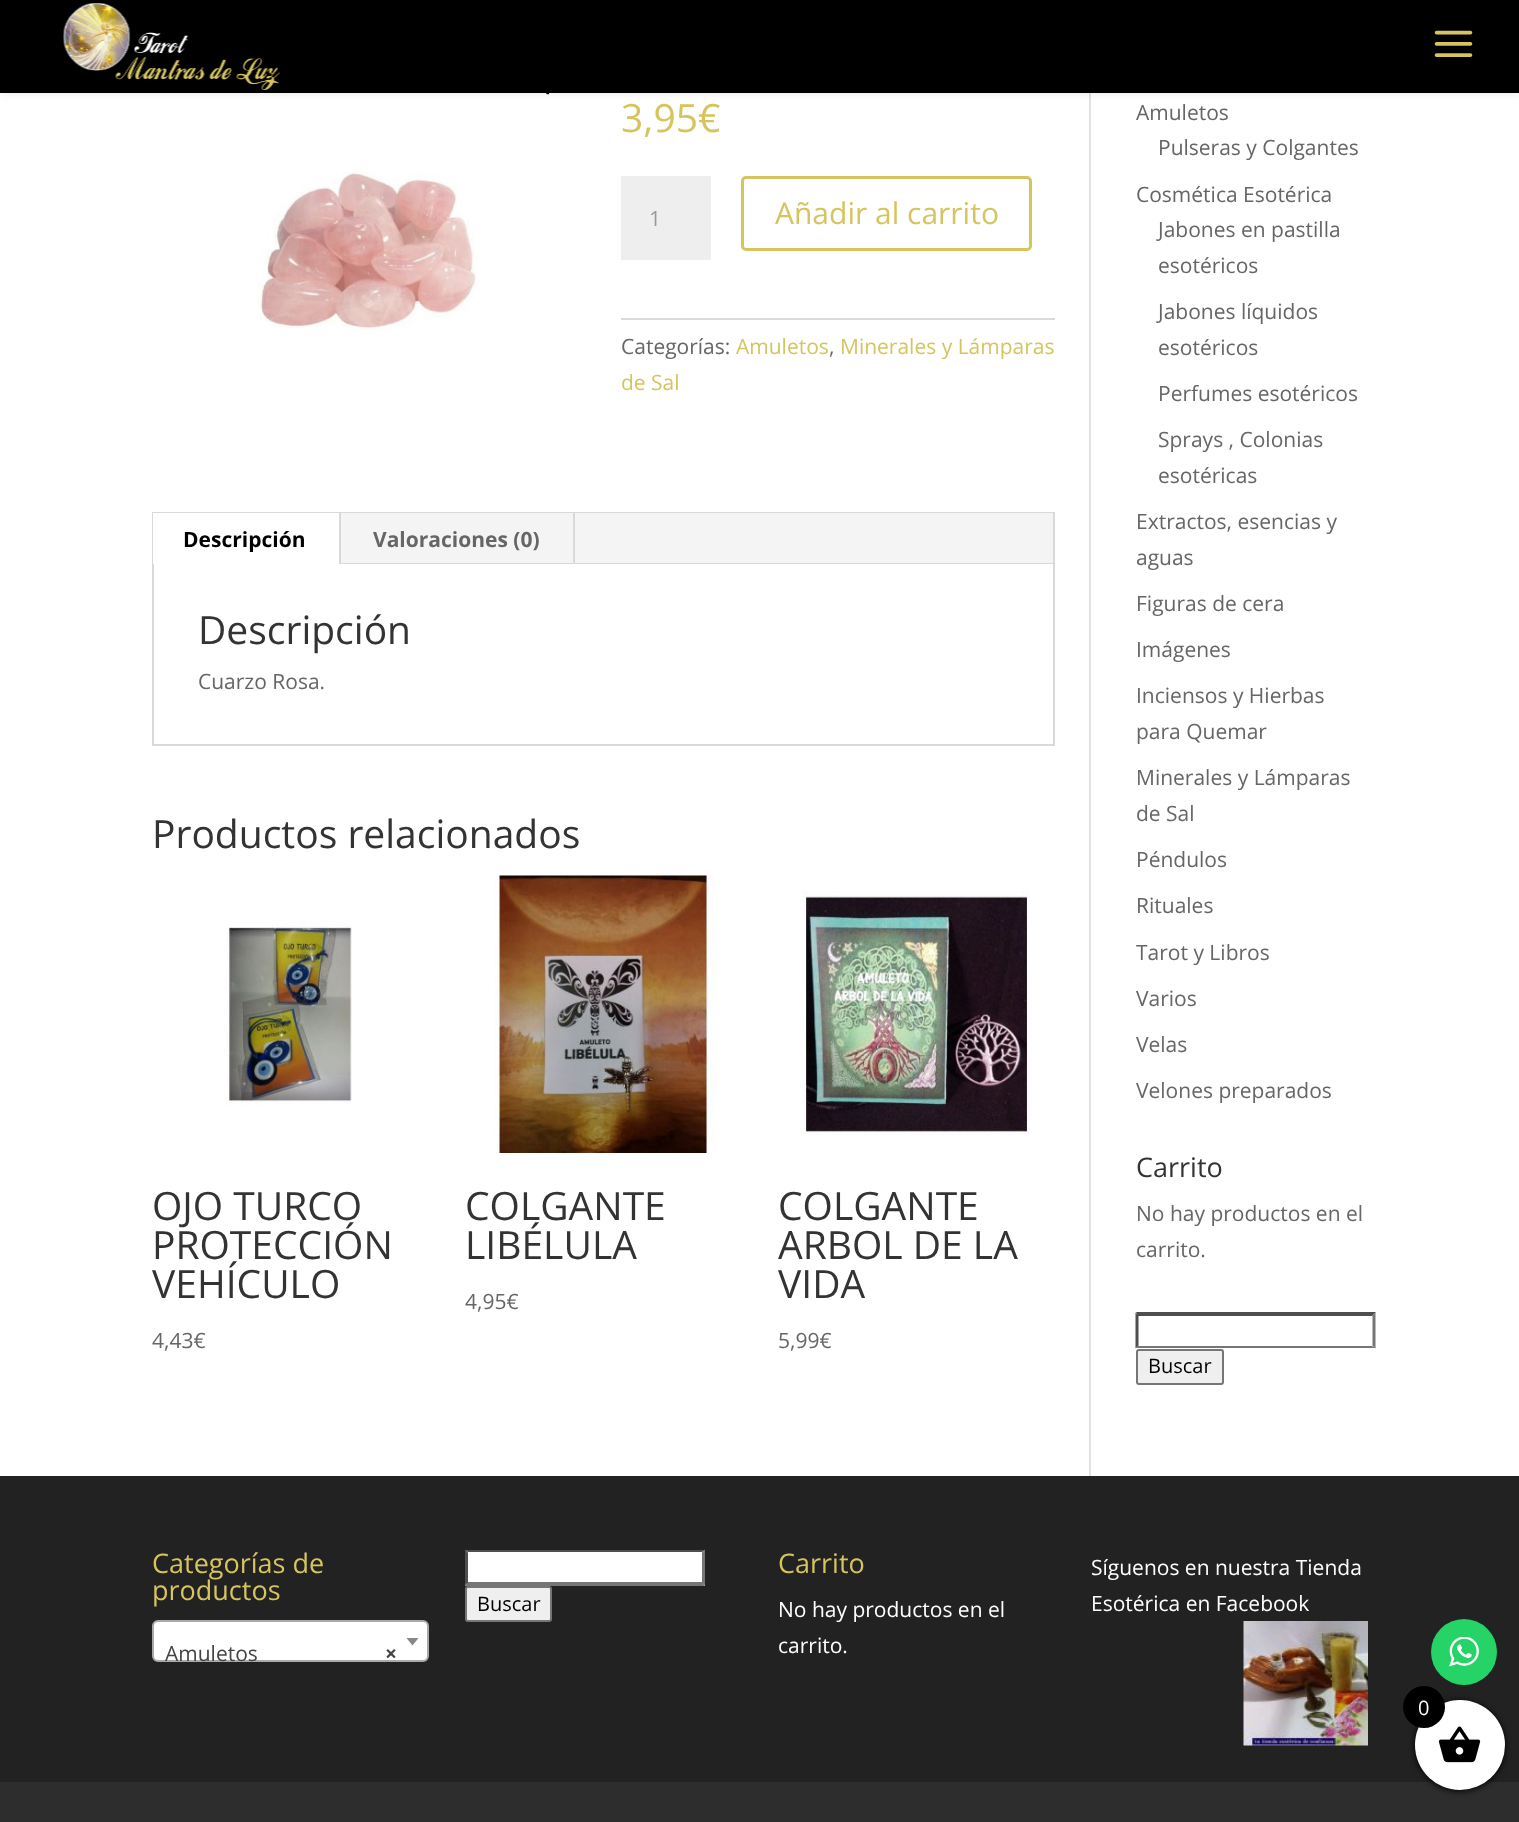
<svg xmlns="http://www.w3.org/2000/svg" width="1519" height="1822">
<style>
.a{font:39px Open Sans;fill:#d6c45e}
.b{font:21px Open Sans;fill:#999}
.c{font:30px Open Sans;fill:#d6c45e}
.d{font:21px Open Sans;fill:#666}
.e{font:21px Open Sans;fill:#d6c45e}
.f{font:bold 21px Open Sans;fill:#000}
.g{font:bold 21px Open Sans;fill:#666}
.h{font:39px Open Sans;fill:#333}
.i{font:27px Open Sans;fill:#333}
.j{font:20px Open Sans;fill:#000}
.k{font:27px Open Sans;fill:#d6c45e}
.l{font:21px Open Sans;fill:#444}
.m{font:bold 21px Open Sans;fill:#444}
.n{font:21px Open Sans;fill:#fff}
.o{font:20px Open Sans;fill:#fff}
</style>
<rect width="100%" height="100%" fill="#fff"/>
<path fill="#e2e2e2" d="M1089 93h2v1383H1089z"/>
<path fill="#000" d="M540.5 85.5c1.5-2 4.5 2 5 3c1 1 5 3.5 3.5 5.5c-2 1.5-4.5-2.5-5.5-3.5c-1-1-5-3.5-3-5z"/>
<path fill="#0000001a" filter="blur(5px)" d="M0 0h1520v93H0z"/>
<path fill="#000" d="M0 0h1519v93H0z"/>
<image href="1.png" x="63" y="3" width="217" height="87"/>
<image href="2.png" x="1434" y="30" width="39" height="27"/>
<image href="3.png" x="256" y="172" width="225" height="158"/>
<path fill="#eee" d="M621 176h90v84H621z"/>
<rect fill="none" stroke="#d6c45e" stroke-width="3" x="742.5" y="177.5" width="288" height="72" rx="3.5"/>
<path fill="#dadada" d="M621 318h434v2H621z"/>
<path fill="none" stroke="#d9d9d9" stroke-width="2" d="M153 513h901v232H153z"/>
<path fill="#f4f4f4" d="M341 513h712v50H341z"/>
<path fill="#fff" d="M153 513h186v51H153z"/>
<path fill="#d9d9d9" d="M339 513h2v51H339z"/>
<path fill="#d9d9d9" d="M573 513h2v51H573z"/>
<path fill="#d9d9d9" d="M341 563h712v1H341z"/>
<image href="4.png" x="226" y="920" width="126" height="185"/>
<image href="5.png" x="494" y="875" width="221" height="278"/>
<image href="6.png" x="802" y="890" width="227" height="245"/>
<path fill="#4f4f4f" d="M1136 1312h240l-4 4h-234z"/>
<path fill="#767676" d="M1375.5 1312.5v36l-3-3v-30z"/>
<path fill="#767676" d="M1376 1348h-240l2-2h234z"/>
<path fill="#4f4f4f" d="M1135.5 1348.5v-36l3 3v30z"/>
<rect fill="#efefef" stroke="#767676" stroke-width="2" x="1137" y="1350" width="86" height="34" rx="2"/>
<path fill="#222" d="M0 1476h1519v306H0z"/>
<rect fill="#fff" stroke="#aaa" stroke-width="2" x="153" y="1621" width="275" height="40" rx="5"/>
<path fill="#888" d="M406.5 1638h12l-6 7.5z"/>
<path fill="#fff" d="M465 1550h240v36H465z"/>
<path fill="#4f4f4f" d="M465 1550h240l-3 2h-234z"/>
<path fill="#767676" d="M705 1549.5v36l-3-3v-30z"/>
<path fill="#767676" d="M705 1586h-240l3-4h234z"/>
<path fill="#4f4f4f" d="M465 1585.5v-36l3 3v30z"/>
<rect fill="#efefef" stroke="#767676" stroke-width="2" x="466" y="1587" width="85" height="34" rx="2"/>
<image href="7.png" x="1243" y="1621" width="125" height="125"/>
<path fill="#2d2d2d" d="M0 1782h1519v40H0z"/>
<circle fill="#25d366" cx="1464" cy="1652" r="33"/>
<image href="8.png" x="1449" y="1637" width="30" height="30"/>
<rect fill="#000" filter="blur(3px)" x="1415" y="1701" width="90" height="90" rx="45"/>
<circle fill="#fff" cx="1460" cy="1745" r="45"/>
<image href="9.png" x="1438" y="1726" width="43" height="37"/>
<circle fill="#000" cx="1424" cy="1707" r="21"/>
<text class="a" x="621" y="132">3,95€</text>
<text class="b" x="649" y="226">1</text>
<text class="c" x="775" y="224">Añadir al carrito</text>
<text class="d" x="621" y="354">Categorías:</text>
<text class="e" x="736" y="354">Amuletos</text>
<text class="d" x="829" y="354">,</text>
<text class="e" x="840" y="354">Minerales y Lámparas</text>
<text class="e" x="621" y="390">de Sal</text>
<text class="f" x="183" y="547">Descripción</text>
<text class="g" x="373" y="547">Valoraciones (0)</text>
<text class="h" x="198" y="644">Descripción</text>
<text class="d" x="198" y="689">Cuarzo Rosa.</text>
<text class="h" x="152" y="848">Productos relacionados</text>
<text class="h" x="152" y="1220">OJO TURCO</text>
<text class="h" x="152" y="1259">PROTECCIÓN</text>
<text class="h" x="152" y="1298">VEHÍCULO</text>
<text class="d" x="152" y="1348">4,43€</text>
<text class="h" x="465" y="1220">COLGANTE</text>
<text class="h" x="465" y="1259">LIBÉLULA</text>
<text class="d" x="465" y="1309">4,95€</text>
<text class="h" x="778" y="1220">COLGANTE</text>
<text class="h" x="778" y="1259">ARBOL DE LA</text>
<text class="h" x="778" y="1298">VIDA</text>
<text class="d" x="778" y="1348">5,99€</text>
<text class="d" x="1136" y="120">Amuletos</text>
<text class="d" x="1158" y="155">Pulseras y Colgantes</text>
<text class="d" x="1136" y="202">Cosmética Esotérica</text>
<text class="d" x="1158" y="237">Jabones en pastilla</text>
<text class="d" x="1158" y="273">esotéricos</text>
<text class="d" x="1158" y="319">Jabones líquidos</text>
<text class="d" x="1158" y="355">esotéricos</text>
<text class="d" x="1158" y="401">Perfumes esotéricos</text>
<text class="d" x="1158" y="447">Sprays , Colonias</text>
<text class="d" x="1158" y="483">esotéricas</text>
<text class="d" x="1136" y="529">Extractos, esencias y</text>
<text class="d" x="1136" y="565">aguas</text>
<text class="d" x="1136" y="611">Figuras de cera</text>
<text class="d" x="1136" y="657">Imágenes</text>
<text class="d" x="1136" y="703">Inciensos y Hierbas</text>
<text class="d" x="1136" y="739">para Quemar</text>
<text class="d" x="1136" y="785">Minerales y Lámparas</text>
<text class="d" x="1136" y="821">de Sal</text>
<text class="d" x="1136" y="867">Péndulos</text>
<text class="d" x="1136" y="913">Rituales</text>
<text class="d" x="1136" y="960">Tarot y Libros</text>
<text class="d" x="1136" y="1006">Varios</text>
<text class="d" x="1136" y="1052">Velas</text>
<text class="d" x="1136" y="1098">Velones preparados</text>
<text class="i" x="1136" y="1177">Carrito</text>
<text class="d" x="1136" y="1221">No hay productos en el</text>
<text class="d" x="1136" y="1257">carrito.</text>
<text class="j" x="1148" y="1373">Buscar</text>
<text class="k" x="152" y="1573">Categorías de</text>
<text class="k" x="152" y="1600">productos</text>
<text class="l" x="165" y="1661">Amuletos</text>
<text class="m" x="385" y="1661">×</text>
<text class="j" x="477" y="1611">Buscar</text>
<text class="k" x="778" y="1573">Carrito</text>
<text class="n" x="778" y="1617">No hay productos en el</text>
<text class="n" x="778" y="1653">carrito.</text>
<text class="n" x="1091" y="1575">Síguenos en nuestra Tienda</text>
<text class="n" x="1091" y="1611">Esotérica en Facebook</text>
<text class="o" x="1418" y="1715">0</text>
</svg>
